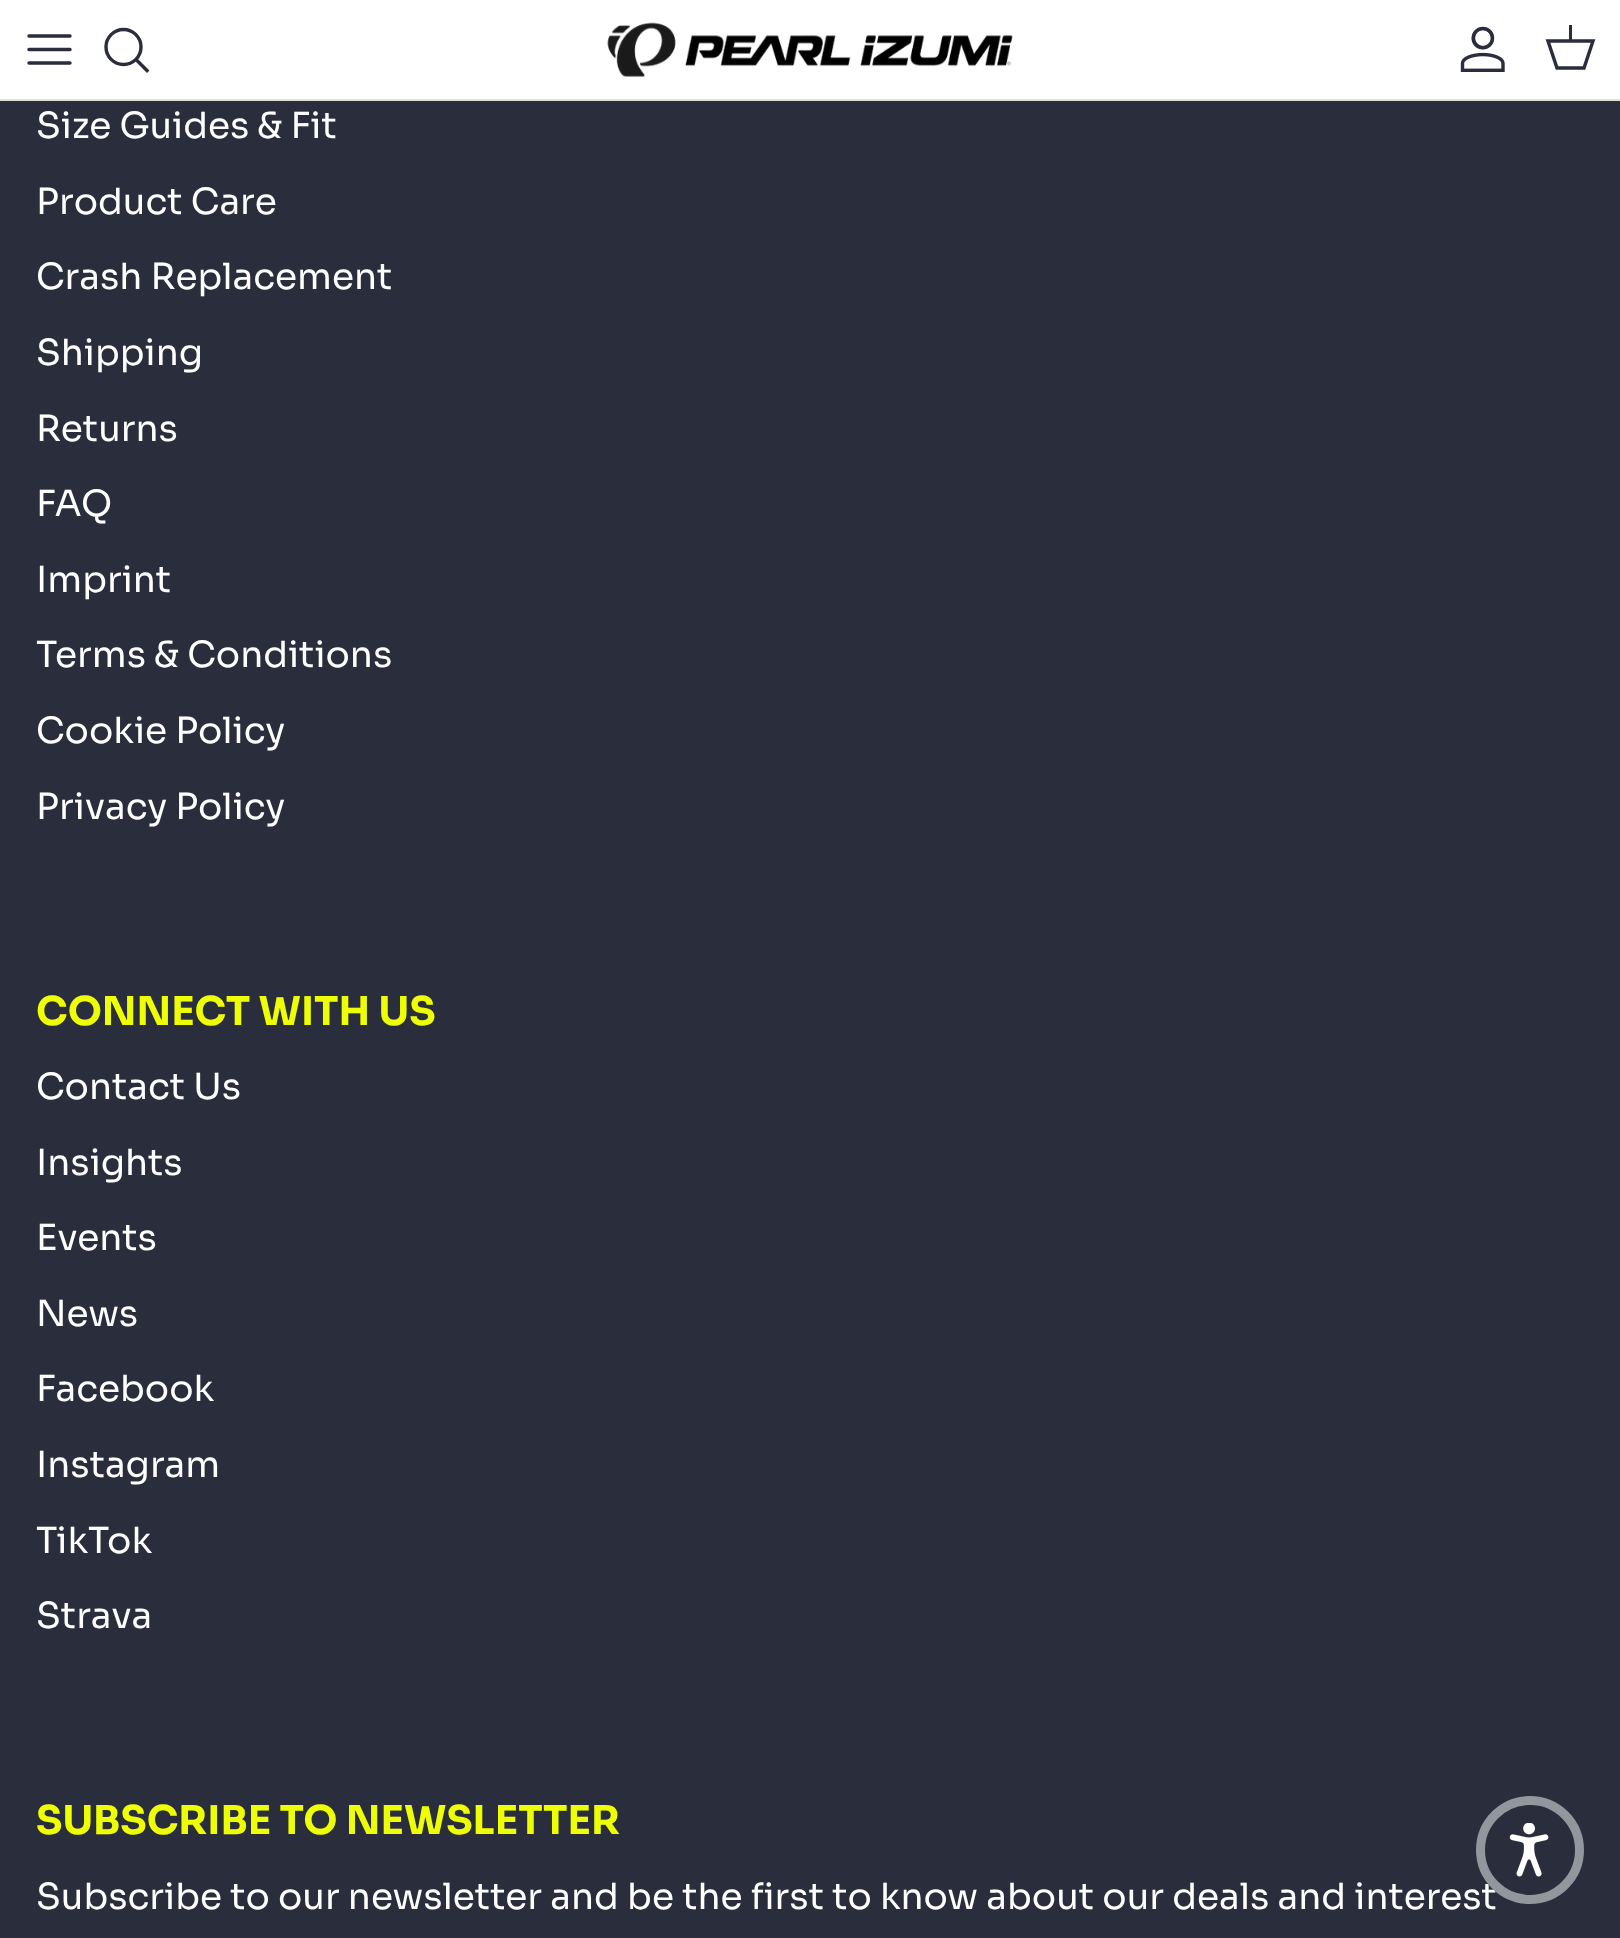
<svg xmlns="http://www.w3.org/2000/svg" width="1620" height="1938">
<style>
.a{font:36px Sora;fill:#fff}
.b{font:bold 39.6px Sora;fill:#edff00}
</style>
<rect width="100%" height="100%" fill="#292d3c"/>
<path fill="#fff" d="M0 0h1620v99H0z"/>
<path fill="#e1e0d3" d="M0 99h1620v2H0z"/>
<path fill="none" stroke="#292d3c" stroke-width="3.4" stroke-linecap="round" stroke-linejoin="round" d="M29 49.5h41m-41-13.5h41m-41 27h41"/>
<circle fill="none" stroke="#292d3c" stroke-width="3.4" cx="123.5" cy="47" r="17.5"/>
<path fill="none" stroke="#292d3c" stroke-width="3.4" stroke-linecap="square" d="M137 60.5l10 10"/>
<image href="1.png" x="607" y="22" width="406" height="55"/>
<image href="2.png" x="1460" y="26" width="45" height="46"/>
<path fill="none" stroke="#292d3c" stroke-width="3.4" d="M1548 41h45l-9 27h-27z"/>
<path fill="#292d3c" d="M1569 25h3v17H1569z"/>
<text class="a" x="36" y="138">Size Guides &amp; Fit</text>
<text class="a" x="36" y="214">Product Care</text>
<text class="a" x="36" y="289">Crash Replacement</text>
<text class="a" x="36" y="365">Shipping</text>
<text class="a" x="36" y="441">Returns</text>
<text class="a" x="36" y="516">FAQ</text>
<text class="a" x="36" y="592">Imprint</text>
<text class="a" x="36" y="667">Terms &amp; Conditions</text>
<text class="a" x="36" y="743">Cookie Policy</text>
<text class="a" x="36" y="819">Privacy Policy</text>
<text class="b" x="36" y="1025">CONNECT WITH US</text>
<text class="a" x="36" y="1099">Contact Us</text>
<text class="a" x="36" y="1175">Insights</text>
<text class="a" x="36" y="1250">Events</text>
<text class="a" x="36" y="1326">News</text>
<text class="a" x="36" y="1401">Facebook</text>
<text class="a" x="36" y="1477">Instagram</text>
<text class="a" x="36" y="1553">TikTok</text>
<text class="a" x="36" y="1628">Strava</text>
<text class="b" x="36" y="1834">SUBSCRIBE TO NEWSLETTER</text>
<text class="a" x="36" y="1909">Subscribe to our newsletter and be the first to know about our deals and interest</text>
<circle fill="#292d3c" cx="1530" cy="1850" r="54"/>
<circle fill="none" stroke="#ffffff80" stroke-width="9" cx="1530" cy="1850" r="49.5"/>
<image href="3.png" x="1509" y="1823" width="40" height="54"/>
</svg>
